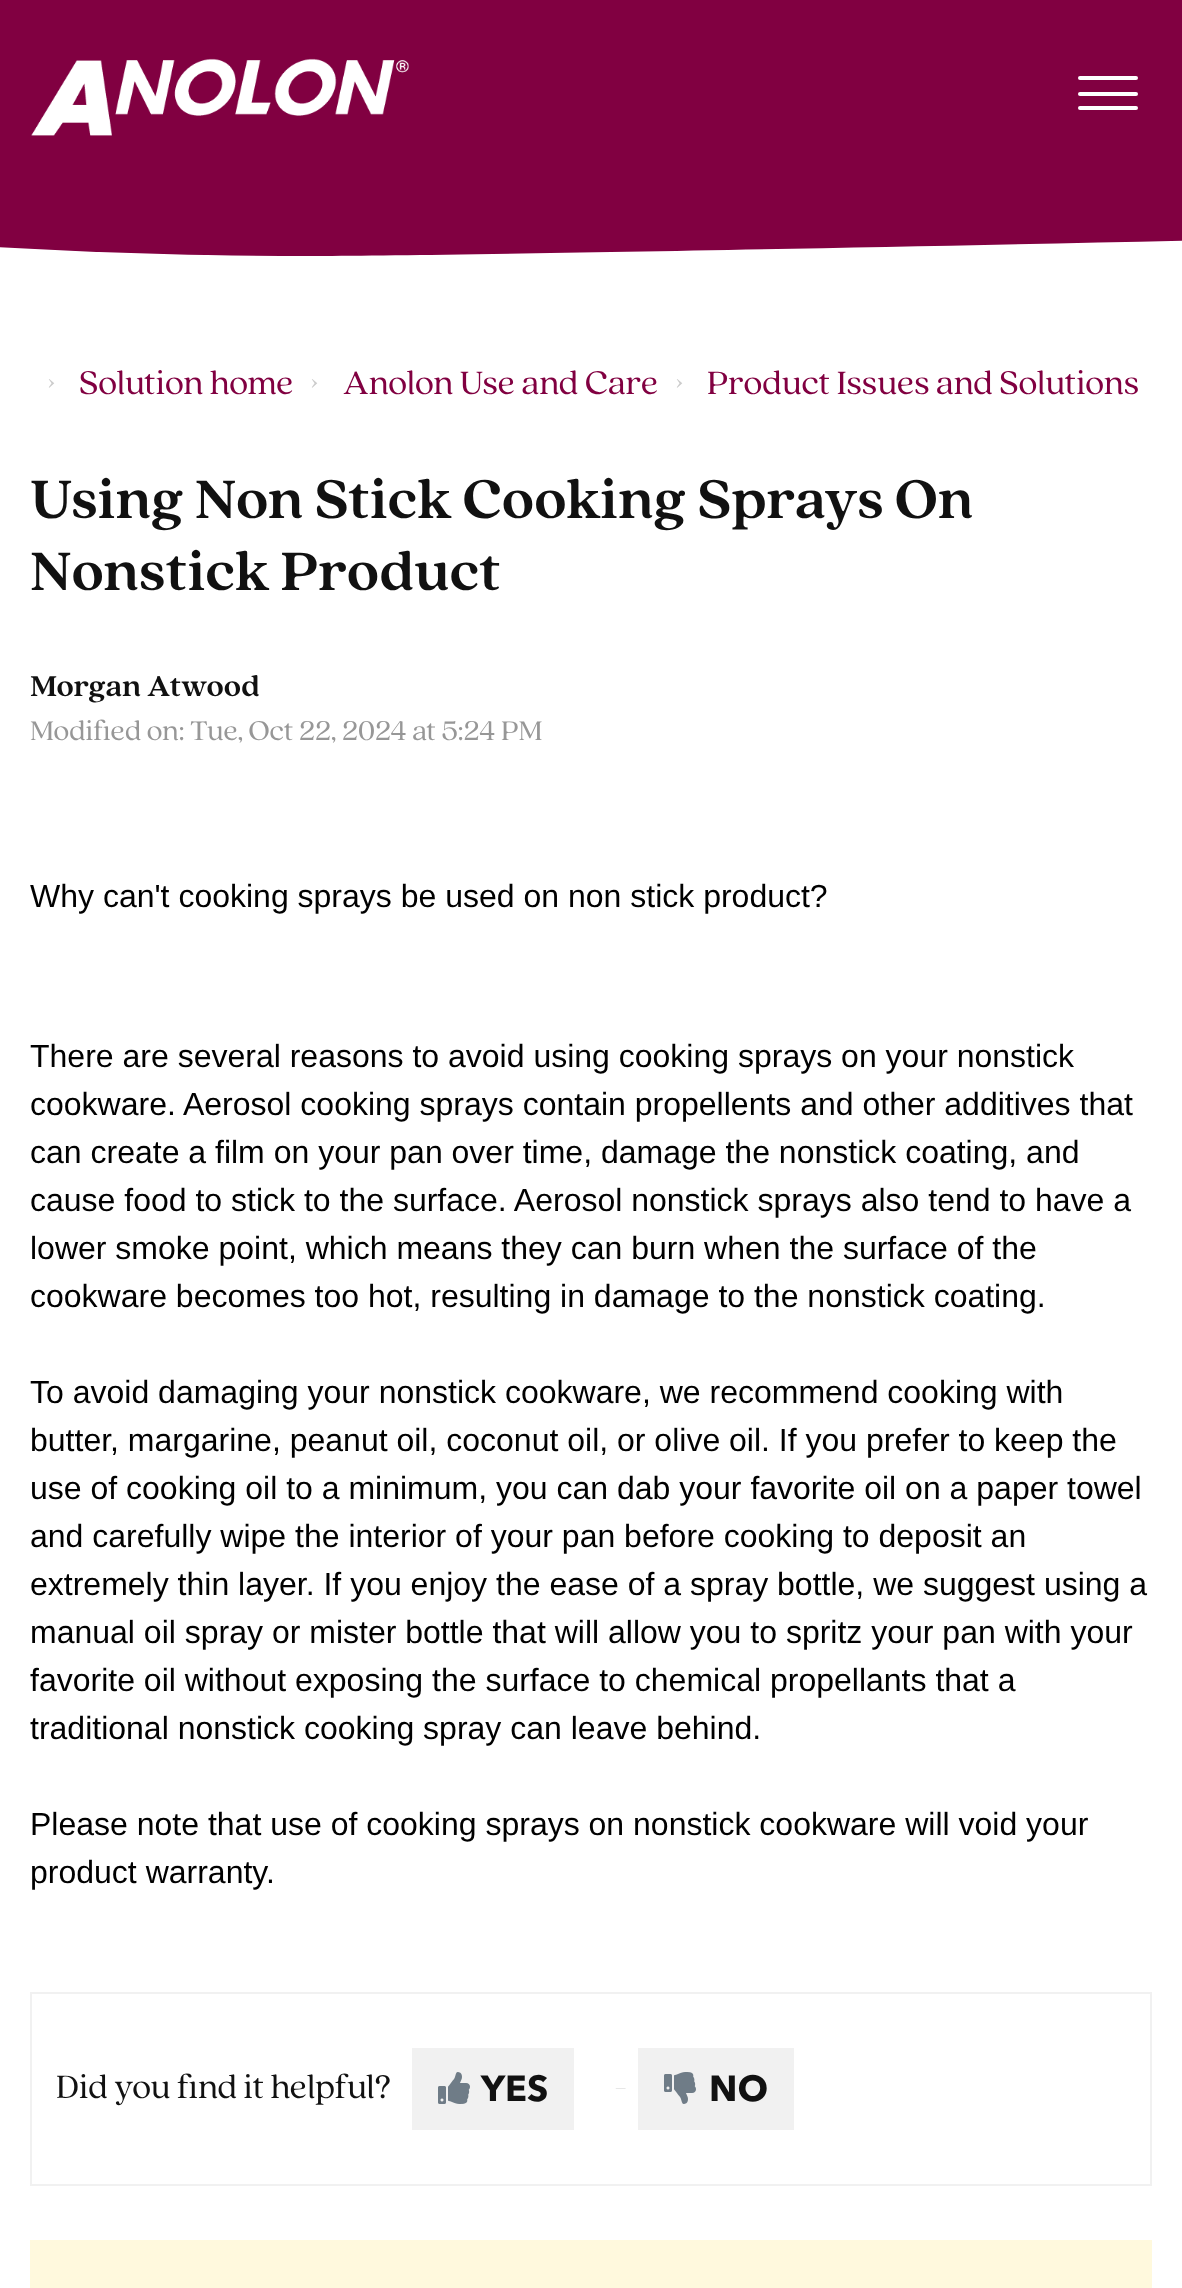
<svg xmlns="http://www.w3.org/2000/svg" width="1182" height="2288">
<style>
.a{font:36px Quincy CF;fill:#ccc}
.b{font:36px Quincy CF;fill:#810041}
.c{font:bold 60px Quincy CF;fill:#111}
.d{font:bold 32px Quincy CF;fill:#111}
.e{font:30px Quincy CF;fill:#979797}
.f{font:32px Liberation Sans;fill:#000}
.g{font:36px Quincy CF;fill:#111}
.h{font:bold 36px Avenir Next;fill:#111}
.i{font:36px Quincy CF;fill:#e5e5e5}
</style>
<rect width="100%" height="100%" fill="#fff"/>
<path fill="#810041" d="M0 0h1182v192H0z"/>
<image href="1.png" x="31" y="58" width="378" height="78"/>
<rect fill="#fff" x="1078" y="92" width="60" height="4" rx="2"/>
<rect fill="#fff" x="1078" y="76" width="60" height="4" rx="2"/>
<rect fill="#fff" x="1078" y="106" width="60" height="4" rx="2"/>
<path fill="#810041" d="M308 256c358 0 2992-64 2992-64h-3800c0 0 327 64 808 64z"/>
<path fill="none" stroke="#f1f1f1" stroke-width="2" d="M31 1993h1120v192H31z"/>
<path fill="#f1f1f1" d="M412 2048h162v82H412z"/>
<image href="2.png" x="438" y="2072" width="32" height="32"/>
<path fill="#f1f1f1" d="M638 2048h156v82H638z"/>
<image href="3.png" x="664" y="2072" width="32" height="32"/>
<path fill="#fff9dd" d="M30 2240h1122v48H30z"/>
<text class="a" x="47" y="394">›</text>
<text class="b" x="79" y="394">Solution home</text>
<text class="a" x="310" y="394">›</text>
<text class="b" x="343" y="394">Anolon Use and Care</text>
<text class="a" x="675" y="394">›</text>
<text class="b" x="707" y="394">Product Issues and Solutions</text>
<text class="c" x="30" y="518">Using Non Stick Cooking Sprays On</text>
<text class="c" x="30" y="590">Nonstick Product</text>
<text class="d" x="30" y="696">Morgan Atwood</text>
<text class="e" x="30" y="740">Modified on: Tue, Oct 22, 2024 at 5:24 PM</text>
<text class="f" x="30" y="907">Why can't cooking sprays be used on non stick product?</text>
<text class="f" x="30" y="1067">There are several reasons to avoid using cooking sprays on your nonstick</text>
<text class="f" x="30" y="1115">cookware. Aerosol cooking sprays contain propellents and other additives that</text>
<text class="f" x="30" y="1163">can create a film on your pan over time, damage the nonstick coating, and</text>
<text class="f" x="30" y="1211">cause food to stick to the surface. Aerosol nonstick sprays also tend to have a</text>
<text class="f" x="30" y="1259">lower smoke point, which means they can burn when the surface of the</text>
<text class="f" x="30" y="1307">cookware becomes too hot, resulting in damage to the nonstick coating.</text>
<text class="f" x="30" y="1403">To avoid damaging your nonstick cookware, we recommend cooking with</text>
<text class="f" x="30" y="1451">butter, margarine, peanut oil, coconut oil, or olive oil. If you prefer to keep the</text>
<text class="f" x="30" y="1499">use of cooking oil to a minimum, you can dab your favorite oil on a paper towel</text>
<text class="f" x="30" y="1547">and carefully wipe the interior of your pan before cooking to deposit an</text>
<text class="f" x="30" y="1595">extremely thin layer. If you enjoy the ease of a spray bottle, we suggest using a</text>
<text class="f" x="30" y="1643">manual oil spray or mister bottle that will allow you to spritz your pan with your</text>
<text class="f" x="30" y="1691">favorite oil without exposing the surface to chemical propellants that a</text>
<text class="f" x="30" y="1739">traditional nonstick cooking spray can leave behind.</text>
<text class="f" x="30" y="1835">Please note that use of cooking sprays on nonstick cookware will void your</text>
<text class="f" x="30" y="1883">product warranty.</text>
<text class="g" x="56" y="2098">Did you find it helpful?</text>
<text class="h" x="481" y="2101">YES</text>
<text class="i" x="614" y="2098">-</text>
<text class="h" x="709" y="2101">NO</text>
</svg>
